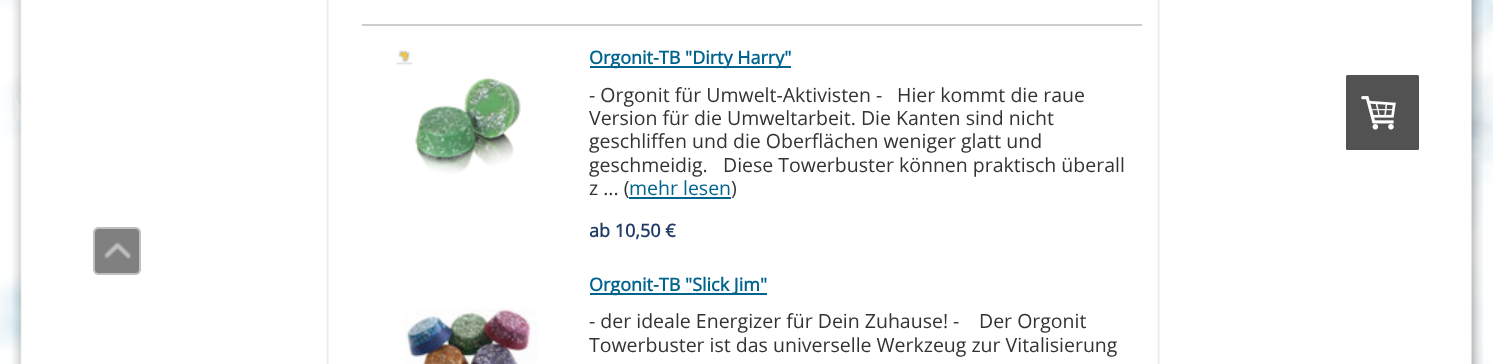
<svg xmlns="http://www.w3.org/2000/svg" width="1493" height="364">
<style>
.a{font:bold 18px Open Sans;fill:#00648e}
.b{font:19.5px Open Sans;fill:#333}
.c{font:19.5px Open Sans;fill:#00648e}
.d{font:bold 18px Open Sans;fill:#223c69}
</style>
<defs>
<clipPath id="clip1"><path d="M590 47h537v24H590z"/></clipPath>
<clipPath id="clip2"><path d="M590 215h537v31H590z"/></clipPath>
<clipPath id="clip3"><path d="M590 273h537v24H590z"/></clipPath>
</defs>
<rect width="100%" height="100%" fill="#fff"/>
<image href="1.png" x="0" y="0" width="1493" height="364"/>
<image href="3.png" x="12" y="0" width="1471" height="364"/>
<rect fill="#808080" x="93" y="227" width="48" height="48" rx="6"/>
<rect fill="none" stroke="#ffffff80" stroke-width="2" x="94" y="228" width="46" height="46" rx="5"/>
<image href="2.png" x="104" y="242" width="27" height="17"/>
<path fill="#ccc" d="M362 24h780v2H362z"/>
<image href="4.png" x="396" y="50" width="125" height="124"/>
<path fill="#00648e" d="M590 66h201v2H590z"/>
<path fill="#00648e" d="M629 197h102v2H629z"/>
<image href="5.png" x="404" y="308" width="133" height="56"/>
<path fill="#00648e" d="M590 293h177v2H590z"/>
<rect fill="#525252" x="1346" y="75" width="73" height="75" rx="1.5"/>
<image href="6.png" x="1361" y="96" width="35" height="34"/>
<g clip-path="url(#clip1)">
<text class="a" x="589" y="64">Orgonit-TB "Dirty Harry"</text>
</g>
<text class="b" x="589" y="102">- Orgonit für Umwelt-Aktivisten -</text>
<text class="b" x="897" y="102">Hier kommt die raue</text>
<text class="b" x="589" y="125">Version für die Umweltarbeit. Die Kanten sind nicht</text>
<text class="b" x="589" y="148">geschliffen und die Oberflächen weniger glatt und</text>
<text class="b" x="589" y="172">geschmeidig.</text>
<text class="b" x="723" y="172">Diese Towerbuster können praktisch überall</text>
<text class="b" x="589" y="195">z ... (</text>
<text class="c" x="629" y="195">mehr lesen</text>
<text class="b" x="731" y="195">)</text>
<g clip-path="url(#clip2)">
<text class="d" x="589" y="237">ab 10,50 €</text>
</g>
<g clip-path="url(#clip3)">
<text class="a" x="589" y="291">Orgonit-TB "Slick Jim"</text>
</g>
<text class="b" x="589" y="328">- der ideale Energizer für Dein Zuhause! -</text>
<text class="b" x="979" y="328">Der Orgonit</text>
<text class="b" x="589" y="352">Towerbuster ist das universelle Werkzeug zur Vitalisierung</text>
</svg>
